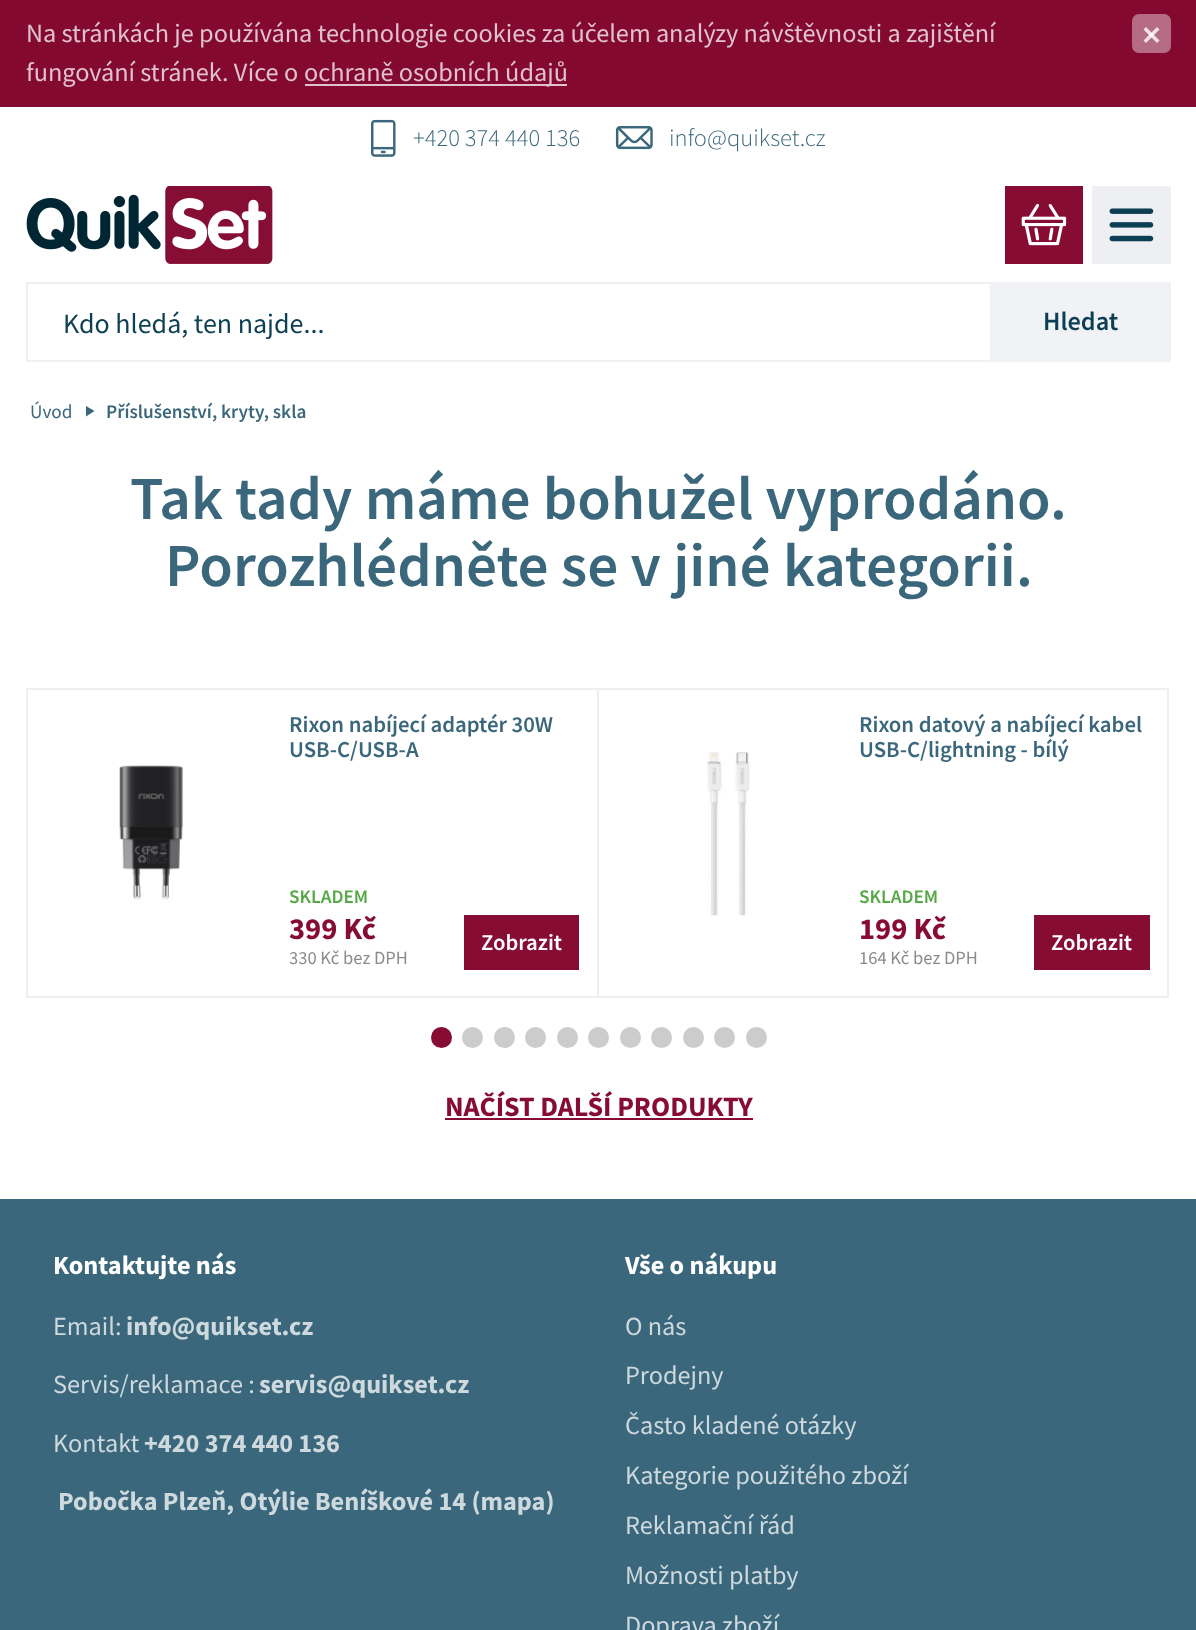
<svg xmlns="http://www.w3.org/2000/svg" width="1196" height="1630">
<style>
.a{font:26.25px Source Sans Pro;fill:#e0c2cc}
.b{font:300 24.5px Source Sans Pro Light;fill:#3a677b}
.c{font:28px Source Sans Pro;fill:#0d3f54}
.d{font:600 26.25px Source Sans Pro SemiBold;fill:#0d3f54}
.e{font:19.25px Source Sans Pro;fill:#3a677b}
.f{font:600 19.25px Source Sans Pro SemiBold;fill:#3a677b}
.g{font:600 61.25px Source Sans Pro SemiBold;fill:#3a677b}
.h{font:600 22.75px Source Sans Pro SemiBold;fill:#3a677b}
.i{font:600 19.25px Source Sans Pro SemiBold;fill:#55a846}
.j{font:bold 30.5px Source Sans Pro;fill:#870c34}
.k{font:18.5px Source Sans Pro;fill:#8b8b8b}
.l{font:600 22.75px Source Sans Pro SemiBold;fill:#fff}
.m{font:bold 28px Source Sans Pro;fill:#870c34}
.n{font:bold 26.25px Source Sans Pro;fill:#fff}
.o{font:26.25px Source Sans Pro;fill:#ced9de}
.p{font:bold 26.25px Source Sans Pro;fill:#ced9de}
</style>
<defs>
<clipPath id="clip1"><path d="M289 714h290v49H289z"/></clipPath>
</defs>
<rect width="100%" height="100%" fill="#fff"/>
<path fill="#830931" d="M0 0h1196v107H0z"/>
<path fill="#e0c2cc" d="M305 84h262v2H305z"/>
<rect fill="#b56b83" x="1132" y="14" width="39" height="39" rx="7"/>
<path fill="#f0e1e6" d="M1146 27l13.5 13.5l-2.5 2.5l-13.5-13.5z"/>
<path fill="#ffffffcc" d="M1143.5 40.5l13.5-13.5l2.5 2.5l-13.5 13.5z"/>
<image href="1.png" x="371" y="119" width="25" height="38"/>
<image href="2.png" x="615" y="126" width="38" height="24"/>
<image href="3.png" x="26" y="186" width="247" height="78"/>
<path fill="#870c34" d="M1005 186h78v78H1005z"/>
<image href="4.png" x="1021" y="203" width="46" height="43"/>
<path fill="#edeff2" d="M1092 186h79v78H1092z"/>
<image href="5.png" x="1109" y="208" width="45" height="34"/>
<path fill="none" stroke="#f0f0f0" stroke-width="2" d="M27 283h964v78H27z"/>
<path fill="#f0f2f5" d="M991 282h180v80H991z"/>
<path fill="#3a677b" d="M94.5 411l-8.5 5.5v-10.5z"/>
<path fill="#edeff2" d="M28 996v2h571v-308h-2v306z"/>
<path fill="#edeff2" d="M26 690v308h571v-308v306h-571z"/>
<path fill="#edeff2" d="M26 688h1143v2H26z"/>
<path fill="#edeff2" d="M26 688h2v308H26z"/>
<image href="6.png" x="119" y="765" width="65" height="135"/>
<path fill="#870c34" d="M464 915h115v55H464z"/>
<path fill="#edeff2" d="M599 996v2h570v-308h-2v306z"/>
<image href="7.png" x="707" y="752" width="43" height="164"/>
<path fill="#870c34" d="M1034 915h116v55H1034z"/>
<circle fill="#870c34" cx="441.5" cy="1037.5" r="10.5"/>
<circle fill="#ccc" cx="472.5" cy="1037.5" r="10.5"/>
<circle fill="#ccc" cx="504.5" cy="1037.5" r="10.5"/>
<circle fill="#ccc" cx="535.5" cy="1037.5" r="10.5"/>
<circle fill="#ccc" cx="567.5" cy="1037.5" r="10.5"/>
<circle fill="#ccc" cx="598.5" cy="1037.5" r="10.5"/>
<circle fill="#ccc" cx="630.5" cy="1037.5" r="10.5"/>
<circle fill="#ccc" cx="661.5" cy="1037.5" r="10.5"/>
<circle fill="#ccc" cx="693.5" cy="1037.5" r="10.5"/>
<circle fill="#ccc" cx="724.5" cy="1037.5" r="10.5"/>
<circle fill="#ccc" cx="756.5" cy="1037.5" r="10.5"/>
<path fill="#870c34" d="M445 1118h308v2H445z"/>
<path fill="#3a677b" d="M0 1199h1196v431H0z"/>
<text class="a" x="26" y="42">Na stránkách je používána technologie cookies za účelem analýzy návštěvnosti a zajištění</text>
<text class="a" x="26" y="81">fungování stránek. Více o</text>
<text class="a" x="304" y="81">ochraně osobních údajů</text>
<text class="b" x="413" y="146">+420 374 440 136</text>
<text class="b" x="669" y="146">info@quikset.cz</text>
<text class="c" x="63" y="333">Kdo hledá, ten najde...</text>
<text class="d" x="1043" y="330">Hledat</text>
<text class="e" x="30" y="418">Úvod</text>
<text class="f" x="106" y="418">Příslušenství, kryty, skla</text>
<text class="g" x="130" y="519">Tak tady máme bohužel vyprodáno.</text>
<text class="g" x="165" y="586">Porozhlédněte se v jiné kategorii.</text>
<g clip-path="url(#clip1)">
<text class="h" x="289" y="732">Rixon nabíjecí adaptér 30W</text>
</g>
<text class="h" x="289" y="757">USB-C/USB-A</text>
<text class="i" x="289" y="903">SKLADEM</text>
<text class="j" x="289" y="939">399 Kč</text>
<text class="k" x="289" y="964">330 Kč bez DPH</text>
<text class="l" x="481" y="950">Zobrazit</text>
<text class="h" x="859" y="732">Rixon datový a nabíjecí kabel</text>
<text class="h" x="859" y="757">USB-C/lightning - bílý</text>
<text class="i" x="859" y="903">SKLADEM</text>
<text class="j" x="859" y="939">199 Kč</text>
<text class="k" x="859" y="964">164 Kč bez DPH</text>
<text class="l" x="1051" y="950">Zobrazit</text>
<text class="m" x="445" y="1116">NAČÍST DALŠÍ PRODUKTY</text>
<text class="n" x="53" y="1274">Kontaktujte nás</text>
<text class="o" x="53" y="1335">Email:</text>
<text class="p" x="126" y="1335">info@quikset.cz</text>
<text class="o" x="53" y="1393">Servis/reklamace :</text>
<text class="p" x="259" y="1393">servis@quikset.cz</text>
<text class="o" x="53" y="1452">Kontakt</text>
<text class="p" x="144" y="1452">+420 374 440 136</text>
<text class="p" x="58" y="1510">Pobočka Plzeň, Otýlie Beníškové 14 (mapa)</text>
<text class="n" x="625" y="1274">Vše o nákupu</text>
<text class="o" x="625" y="1335">O nás</text>
<text class="o" x="625" y="1384">Prodejny</text>
<text class="o" x="625" y="1434">Často kladené otázky</text>
<text class="o" x="625" y="1484">Kategorie použitého zboží</text>
<text class="o" x="625" y="1534">Reklamační řád</text>
<text class="o" x="625" y="1584">Možnosti platby</text>
<text class="o" x="625" y="1634">Doprava zboží</text>
</svg>
